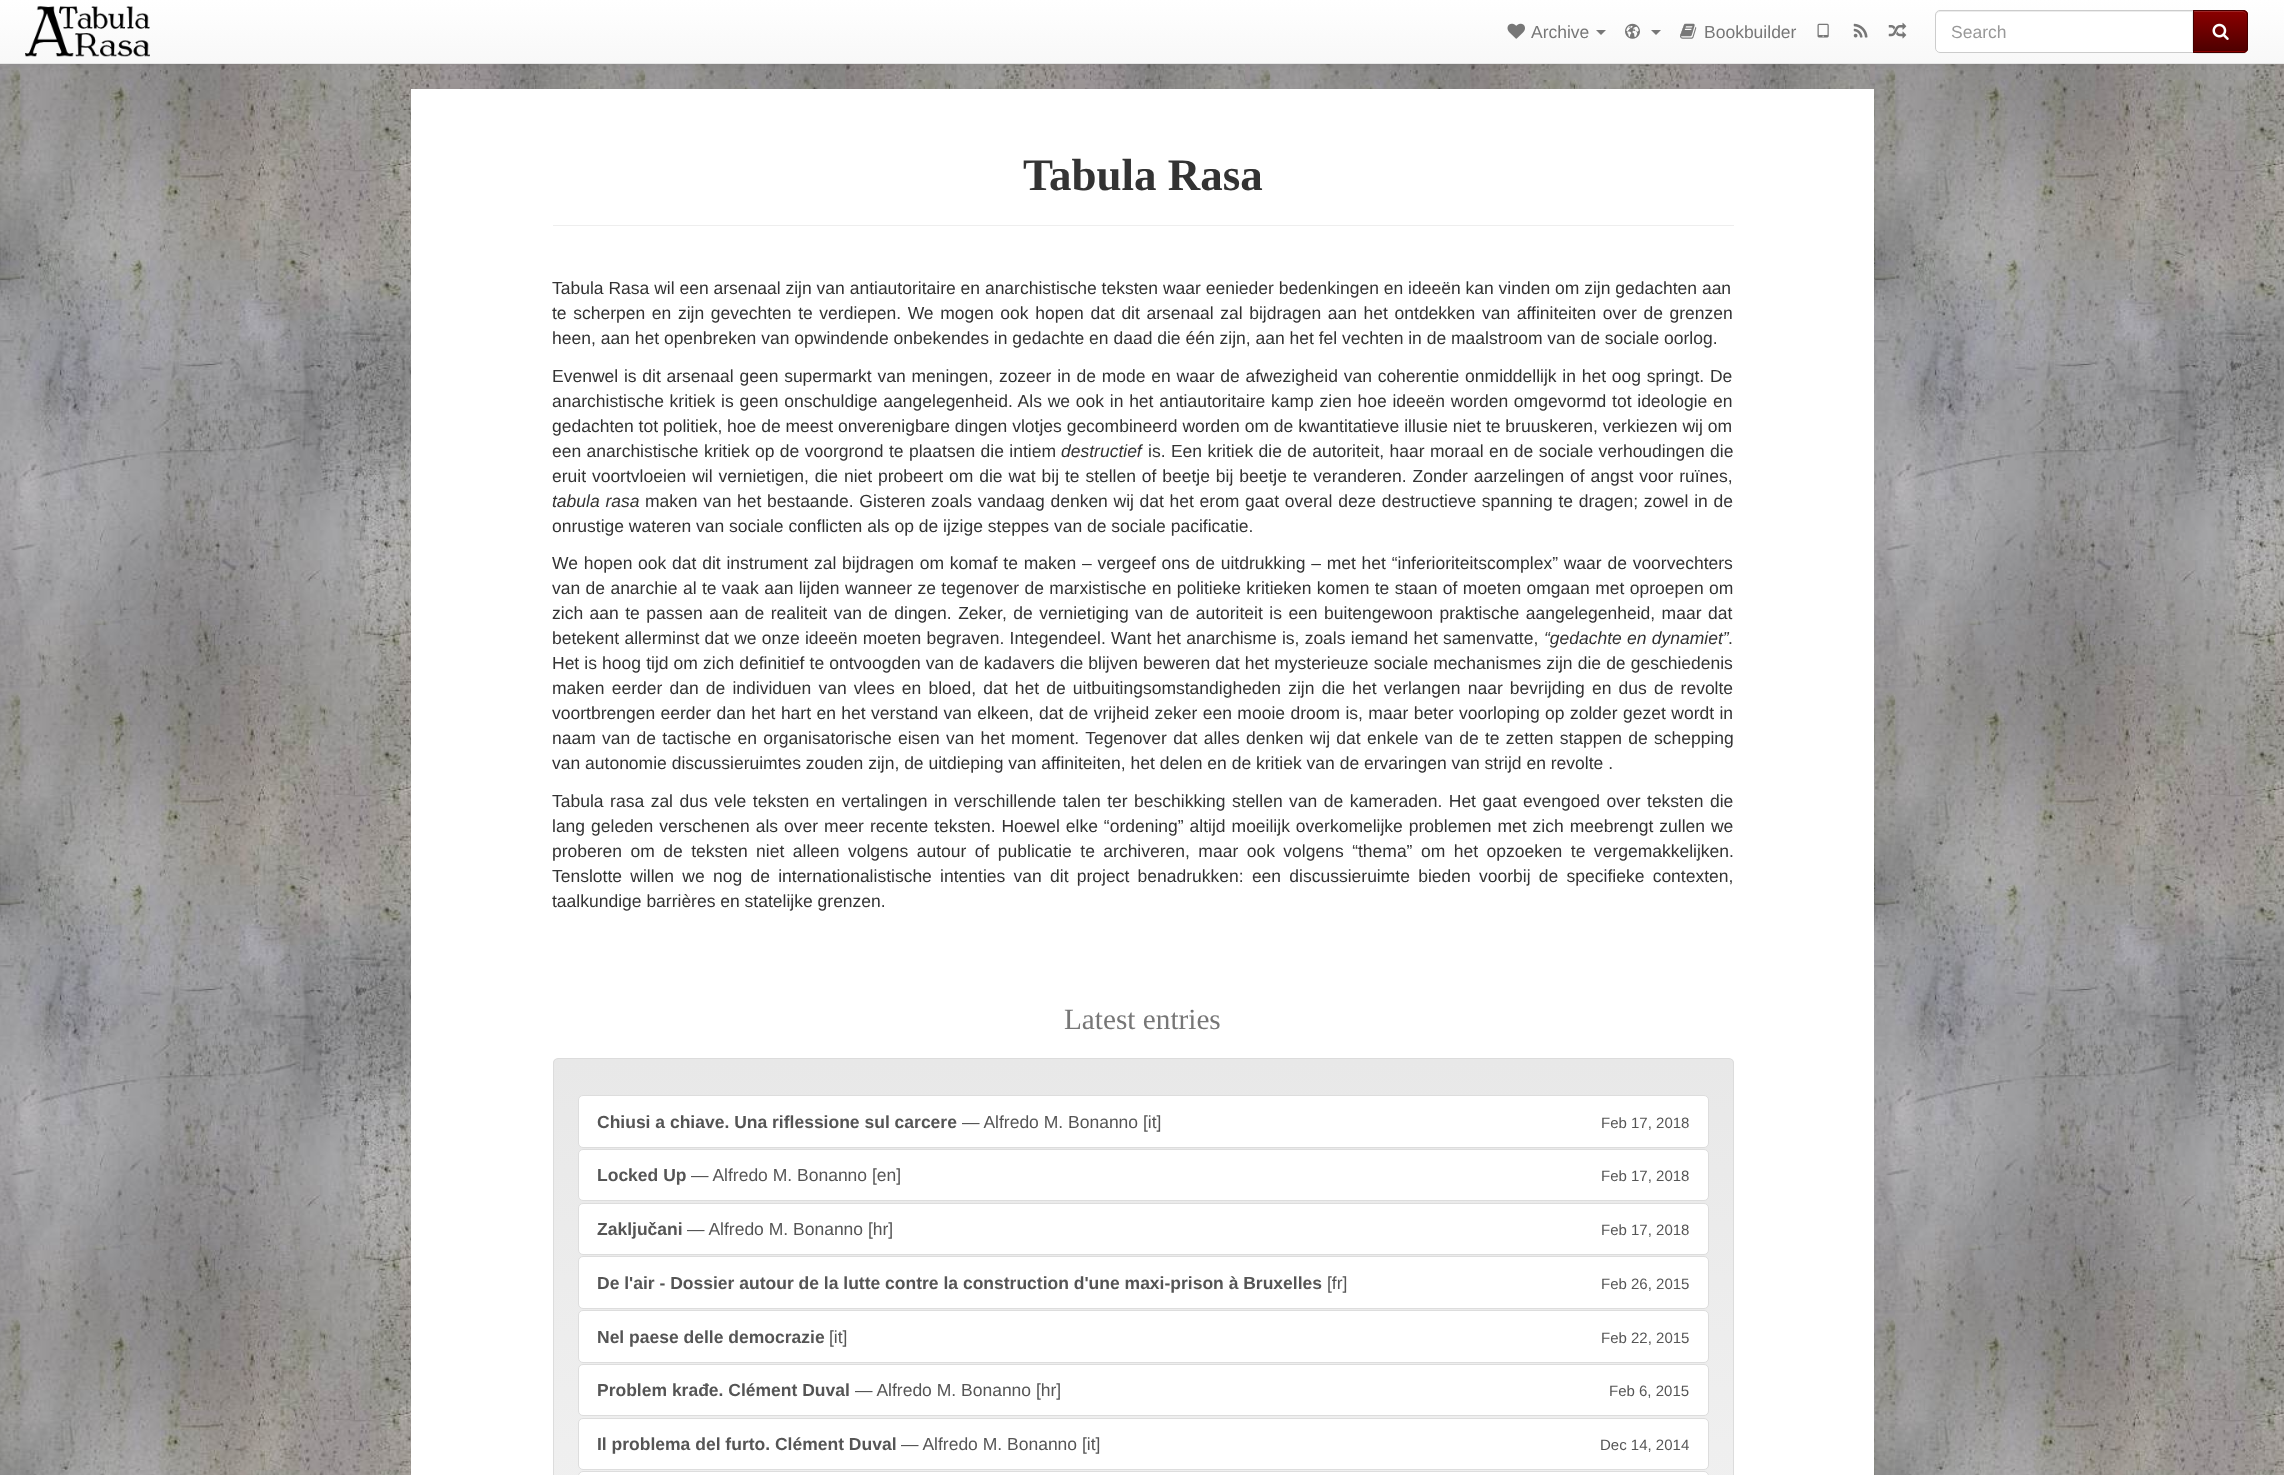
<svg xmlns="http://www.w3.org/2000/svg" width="2284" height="1475">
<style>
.a{font:17.5px Liberation Sans;fill:#777}
.b{font:17.5px Liberation Sans;fill:#999}
.c{font:bold 45px Liberation Serif;fill:#333}
.d{font:17.5px Liberation Sans;fill:#333}
.e{font:italic 17.5px Liberation Sans;fill:#333}
.f{font:29.25px Liberation Serif;fill:#777}
.g{font:bold 17.5px Liberation Sans;fill:#555}
.h{font:17.5px Liberation Sans;fill:#555}
.i{font:15px Liberation Sans;fill:#555}
</style>
<defs>
<linearGradient id="g1" gradientUnits="userSpaceOnUse" x1="1143" y1="0" x2="1143" y2="63"><stop offset="0" stop-color="#fff"/><stop offset="1" stop-color="#f8f8f8"/></linearGradient>
<clipPath id="clip1"><path d="M2193 10h50c3 0 5 2 5 5v33c0 3-2 5-5 5h-50z"/></clipPath>
<linearGradient id="g2" gradientUnits="userSpaceOnUse" x1="2220" y1="11" x2="2220" y2="51"><stop offset="0" stop-color="#8b0000"/><stop offset="1" stop-color="#4e0000"/></linearGradient>
<clipPath id="clip2"><rect x="553" y="1058" width="1181" height="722" rx="5"/></clipPath>
<linearGradient id="g3" gradientUnits="userSpaceOnUse" x1="1143" y1="1059" x2="1143" y2="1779"><stop offset="0" stop-color="#e8e8e8"/><stop offset="1" stop-color="#f5f5f5"/></linearGradient>
</defs>
<rect width="100%" height="100%" fill="#fff"/>
<image href="1.png" x="0" y="64" width="2284" height="1411"/>
<path fill="#00000012" filter="blur(3px)" d="M0 1h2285v64H0z"/>
<path fill="url(#g1)" d="M0 0h2284v63H0z"/>
<path fill="#e7e7e7" d="M0 63h2284v1H0z"/>
<image href="2.png" x="25" y="6" width="125" height="51"/>
<image href="3.png" x="1507" y="23" width="18" height="16"/>
<path fill="#777" d="M1596 30h10l-5 5z"/>
<image href="4.png" x="1625" y="23" width="15" height="16"/>
<path fill="#777" d="M1651 30h10l-5 5z"/>
<image href="5.png" x="1680" y="23" width="17" height="16"/>
<image href="6.png" x="1817" y="23" width="12" height="15"/>
<image href="7.png" x="1853" y="23" width="15" height="15"/>
<image href="8.png" x="1888" y="22" width="19" height="17"/>
<path fill="#fff" d="M1940 10h254v43h-254c-3 0-5-2-5-5v-33c0-3 2-5 5-5z"/>
<path fill="#ececec" d="M1940 12h252v39h1v-40h-253c-2 0-4 2-4 4v1c0-2 2-4 4-4z"/>
<path fill="none" stroke="#ccc" d="M1940 10.5h253.5v42h-253.5c-2.5 0-4.5-2-4.5-4.5v-33c0-2.5 2-4.5 4.5-4.5z"/>
<rect fill="#00000012" filter="blur(0.5px)" x="2193" y="11" width="55" height="43" rx="5"/>
<path fill="#8b0000" d="M2193 10h50c3 0 5 2 5 5v33c0 3-2 5-5 5h-50z"/>
<g clip-path="url(#clip1)">
<path fill="url(#g2)" d="M2194 11h54v40H2194z"/>
</g>
<path fill="#9c2626" d="M2194 12h48c3 0 4 2 4 4v-1c0-2-2-4-4-4h-48z"/>
<path fill="none" stroke="#400" d="M2193.5 10.5h49.5c2.5 0 4.5 2 4.5 4.5v33c0 2.5-2 4.5-4.5 4.5h-49.5z"/>
<image href="9.png" x="2212" y="23" width="17" height="17"/>
<path fill="#fff" d="M411 89h1463v1386H411z"/>
<path fill="#eee" d="M553 225h1181v1H553z"/>
<g clip-path="url(#clip2)">
<path fill="url(#g3)" d="M553 1059h1181v416H553z"/>
</g>
<rect fill="none" stroke="#dcdcdc" x="553.5" y="1058.5" width="1180" height="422" rx="4.5"/>
<rect fill="#fff" stroke="#ddd" x="578.5" y="1095.5" width="1130" height="52" rx="4.5"/>
<rect fill="#fff" stroke="#ddd" x="578.5" y="1149.5" width="1130" height="51" rx="4.5"/>
<rect fill="#fff" stroke="#ddd" x="578.5" y="1203.5" width="1130" height="51" rx="4.5"/>
<rect fill="#fff" stroke="#ddd" x="578.5" y="1256.5" width="1130" height="52" rx="4.5"/>
<rect fill="#fff" stroke="#ddd" x="578.5" y="1310.5" width="1130" height="52" rx="4.5"/>
<rect fill="#fff" stroke="#ddd" x="578.5" y="1364.5" width="1130" height="51" rx="4.5"/>
<rect fill="#fff" stroke="#ddd" x="578.5" y="1418.5" width="1130" height="51" rx="4.5"/>
<rect fill="#fff" stroke="#ddd" x="578.5" y="1471.5" width="1130" height="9" rx="4.5"/>
<text class="a" x="1531" y="38">Archive</text>
<text class="a" x="1704" y="38">Bookbuilder</text>
<text class="b" x="1951" y="38">Search</text>
<text class="c" x="1023" y="190">Tabula Rasa</text>
<text class="d" x="552" y="294">Tabula Rasa wil een arsenaal zijn van antiautoritaire en anarchistische teksten waar eenieder bedenkingen en ideeën kan vinden om zijn gedachten aan</text>
<text class="d" x="552" y="319" word-spacing="1.75">te scherpen en zijn gevechten te verdiepen. We mogen ook hopen dat dit arsenaal zal bijdragen aan het ontdekken van affiniteiten over de grenzen</text>
<text class="d" x="552" y="344">heen, aan het openbreken van opwindende onbekendes in gedachte en daad die één zijn, aan het fel vechten in de maalstroom van de sociale oorlog.</text>
<text class="d" x="552" y="382" word-spacing="0.9">Evenwel is dit arsenaal geen supermarkt van meningen, zozeer in de mode en waar de afwezigheid van coherentie onmiddellijk in het oog springt. De</text>
<text class="d" x="552" y="407" word-spacing="0.9">anarchistische kritiek is geen onschuldige aangelegenheid. Als we ook in het antiautoritaire kamp zien hoe ideeën worden omgevormd tot ideologie en</text>
<text class="d" x="552" y="432">gedachten tot politiek, hoe de meest onverenigbare dingen vlotjes gecombineerd worden om de kwantitatieve illusie niet te bruuskeren, verkiezen wij om</text>
<text class="d" x="552" y="457" word-spacing="0.55">een anarchistische kritiek op de voorgrond te plaatsen die intiem</text>
<text class="e" x="1061" y="457">destructief</text>
<text class="d" x="1148" y="457" word-spacing="0.55">is. Een kritiek die de autoriteit, haar moraal en de sociale verhoudingen die</text>
<text class="d" x="552" y="482" word-spacing="1">eruit voortvloeien wil vernietigen, die niet probeert om die wat bij te stellen of beetje bij beetje te veranderen. Zonder aarzelingen of angst voor ruïnes,</text>
<text class="e" x="552" y="507" word-spacing="1">tabula rasa</text>
<text class="d" x="645" y="507" word-spacing="0.8">maken van het bestaande. Gisteren zoals vandaag denken wij dat het erom gaat overal deze destructieve spanning te dragen; zowel in de</text>
<text class="d" x="552" y="532">onrustige wateren van sociale conflicten als op de ijzige steppes van de sociale pacificatie.</text>
<text class="d" x="552" y="569" word-spacing="0.9">We hopen ook dat dit instrument zal bijdragen om komaf te maken – vergeef ons de uitdrukking – met het “inferioriteitscomplex” waar de voorvechters</text>
<text class="d" x="552" y="594" word-spacing="0.5">van de anarchie al te vaak aan lijden wanneer ze tegenover de marxistische en politieke kritieken komen te staan of moeten omgaan met oproepen om</text>
<text class="d" x="552" y="619" word-spacing="1.6">zich aan te passen aan de realiteit van de dingen. Zeker, de vernietiging van de autoriteit is een buitengewoon praktische aangelegenheid, maar dat</text>
<text class="d" x="552" y="644" word-spacing="0.4">betekent allerminst dat we onze ideeën moeten begraven. Integendeel. Want het anarchisme is, zoals iemand het samenvatte,</text>
<text class="e" x="1544" y="644" word-spacing="0.4">“gedachte en dynamiet”</text>
<text class="d" x="1728" y="644">.</text>
<text class="d" x="552" y="669" word-spacing="0.25">Het is hoog tijd om zich definitief te ontvoogden van de kadavers die blijven beweren dat het mysterieuze sociale mechanismes zijn die de geschiedenis</text>
<text class="d" x="552" y="694" word-spacing="2.3">maken eerder dan de individuen van vlees en bloed, dat het de uitbuitingsomstandigheden zijn die het verlangen naar bevrijding en dus de revolte</text>
<text class="d" x="552" y="719" word-spacing="0.55">voortbrengen eerder dan het hart en het verstand van elkeen, dat de vrijheid zeker een mooie droom is, maar beter voorloping op zolder gezet wordt in</text>
<text class="d" x="552" y="744" word-spacing="1.4">naam van de tactische en organisatorische eisen van het moment. Tegenover dat alles denken wij dat enkele van de te zetten stappen de schepping</text>
<text class="d" x="552" y="769">van autonomie discussieruimtes zouden zijn, de uitdieping van affiniteiten, het delen en de kritiek van de ervaringen van strijd en revolte .</text>
<text class="d" x="552" y="807" word-spacing="1.65">Tabula rasa zal dus vele teksten en vertalingen in verschillende talen ter beschikking stellen van de kameraden. Het gaat evengoed over teksten die</text>
<text class="d" x="552" y="832" word-spacing="1.1">lang geleden verschenen als over meer recente teksten. Hoewel elke “ordening” altijd moeilijk overkomelijke problemen met zich meebrengt zullen we</text>
<text class="d" x="552" y="857" word-spacing="3.6">proberen om de teksten niet alleen volgens autour of publicatie te archiveren, maar ook volgens “thema” om het opzoeken te vergemakkelijken.</text>
<text class="d" x="552" y="882" word-spacing="3.4">Tenslotte willen we nog de internationalistische intenties van dit project benadrukken: een discussieruimte bieden voorbij de specifieke contexten,</text>
<text class="d" x="552" y="907">taalkundige barrières en statelijke grenzen.</text>
<text class="f" x="1064" y="1029">Latest entries</text>
<text class="g" x="597" y="1128">Chiusi a chiave. Una riflessione sul carcere</text>
<text class="h" x="962" y="1128">— Alfredo M. Bonanno [it]</text>
<text class="i" x="1601" y="1128">Feb 17, 2018</text>
<text class="g" x="597" y="1181">Locked Up</text>
<text class="h" x="691" y="1181">— Alfredo M. Bonanno [en]</text>
<text class="i" x="1601" y="1181">Feb 17, 2018</text>
<text class="g" x="597" y="1235">Zaključani</text>
<text class="h" x="687" y="1235">— Alfredo M. Bonanno [hr]</text>
<text class="i" x="1601" y="1235">Feb 17, 2018</text>
<text class="g" x="597" y="1289">De l'air - Dossier autour de la lutte contre la construction d'une maxi-prison à Bruxelles</text>
<text class="h" x="1327" y="1289">[fr]</text>
<text class="i" x="1601" y="1289">Feb 26, 2015</text>
<text class="g" x="597" y="1343">Nel paese delle democrazie</text>
<text class="h" x="829" y="1343">[it]</text>
<text class="i" x="1601" y="1343">Feb 22, 2015</text>
<text class="g" x="597" y="1396">Problem krađe. Clément Duval</text>
<text class="h" x="855" y="1396">— Alfredo M. Bonanno [hr]</text>
<text class="i" x="1609" y="1396">Feb 6, 2015</text>
<text class="g" x="597" y="1450">Il problema del furto. Clément Duval</text>
<text class="h" x="901" y="1450">— Alfredo M. Bonanno [it]</text>
<text class="i" x="1600" y="1450">Dec 14, 2014</text>
</svg>
